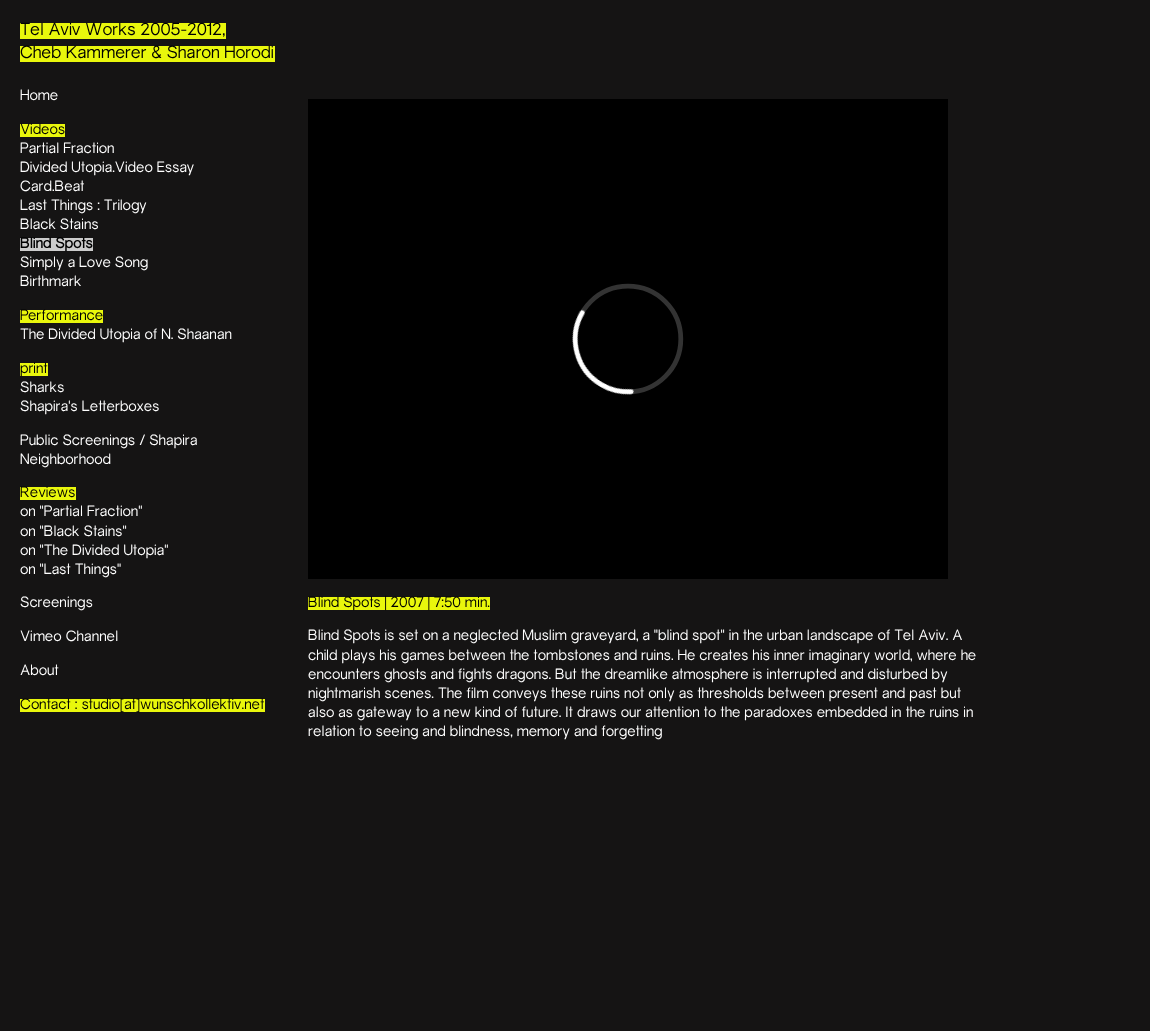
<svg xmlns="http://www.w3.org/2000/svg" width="1150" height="1031">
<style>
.a{font:17.3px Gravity;fill:#000}
.b{font:14.65px Gravity;fill:#fff}
.c{font:14.65px Gravity;fill:#000}
.d{font:bold 14.65px Gravity;fill:#000}
</style>
<rect width="100%" height="100%" fill="#151414"/>
<path fill="#e9f70c" d="M20 23h206v16H20z"/>
<path fill="#e9f70c" d="M20 46h255v16H20z"/>
<path fill="#e9f70c" d="M20 124h45v13H20z"/>
<path fill="#ccc" d="M20 238h73v13H20z"/>
<path fill="#e9f70c" d="M20 310h83v13H20z"/>
<path fill="#e9f70c" d="M20 363h28v13H20z"/>
<path fill="#e9f70c" d="M20 487h56v13H20z"/>
<path fill="#e9f70c" d="M20 699h245v13H20z"/>
<image href="1.png" x="308" y="99" width="640" height="480"/>
<path fill="#e9f70c" d="M308 597h182v13H308z"/>
<text class="a" x="20" y="35">Tel Aviv Works 2005-2012,</text>
<text class="a" x="20" y="58">Cheb Kammerer &amp; Sharon Horodi</text>
<text class="b" x="20" y="100">Home</text>
<text class="c" x="20" y="134">Videos</text>
<text class="b" x="20" y="153">Partial Fraction</text>
<text class="b" x="20" y="172">Divided Utopia.Video Essay</text>
<text class="b" x="20" y="191">Card.Beat</text>
<text class="b" x="20" y="210">Last Things : Trilogy</text>
<text class="b" x="20" y="229">Black Stains</text>
<text class="d" x="20" y="248">Blind Spots</text>
<text class="b" x="20" y="267">Simply a Love Song</text>
<text class="b" x="20" y="286">Birthmark</text>
<text class="c" x="20" y="320">Performance</text>
<text class="b" x="20" y="339">The Divided Utopia of N. Shaanan</text>
<text class="c" x="20" y="373">print</text>
<text class="b" x="20" y="392">Sharks</text>
<text class="b" x="20" y="411">Shapira's Letterboxes</text>
<text class="b" x="20" y="445">Public Screenings / Shapira</text>
<text class="b" x="20" y="464">Neighborhood</text>
<text class="c" x="20" y="497">Reviews</text>
<text class="b" x="20" y="516">on "Partial Fraction"</text>
<text class="b" x="20" y="536">on "Black Stains"</text>
<text class="b" x="20" y="555">on "The Divided Utopia"</text>
<text class="b" x="20" y="574">on "Last Things"</text>
<text class="b" x="20" y="607">Screenings</text>
<text class="b" x="20" y="641">Vimeo Channel</text>
<text class="b" x="20" y="675">About</text>
<text class="c" x="20" y="709">Contact : studio[at]wunschkollektiv.net</text>
<text class="c" x="308" y="607">Blind Spots | 2007 | 7:50 min.</text>
<text class="b" x="308" y="640">Blind Spots is set on a neglected Muslim graveyard, a "blind spot" in the urban landscape of Tel Aviv. A</text>
<text class="b" x="308" y="660">child plays his games between the tombstones and ruins. He creates his inner imaginary world, where he</text>
<text class="b" x="308" y="679">encounters ghosts and fights dragons. But the dreamlike atmosphere is interrupted and disturbed by</text>
<text class="b" x="308" y="698">nightmarish scenes. The film conveys these ruins not only as thresholds between present and past but</text>
<text class="b" x="308" y="717">also as gateway to a new kind of future. It draws our attention to the paradoxes embedded in the ruins in</text>
<text class="b" x="308" y="736">relation to seeing and blindness, memory and forgetting</text>
</svg>
